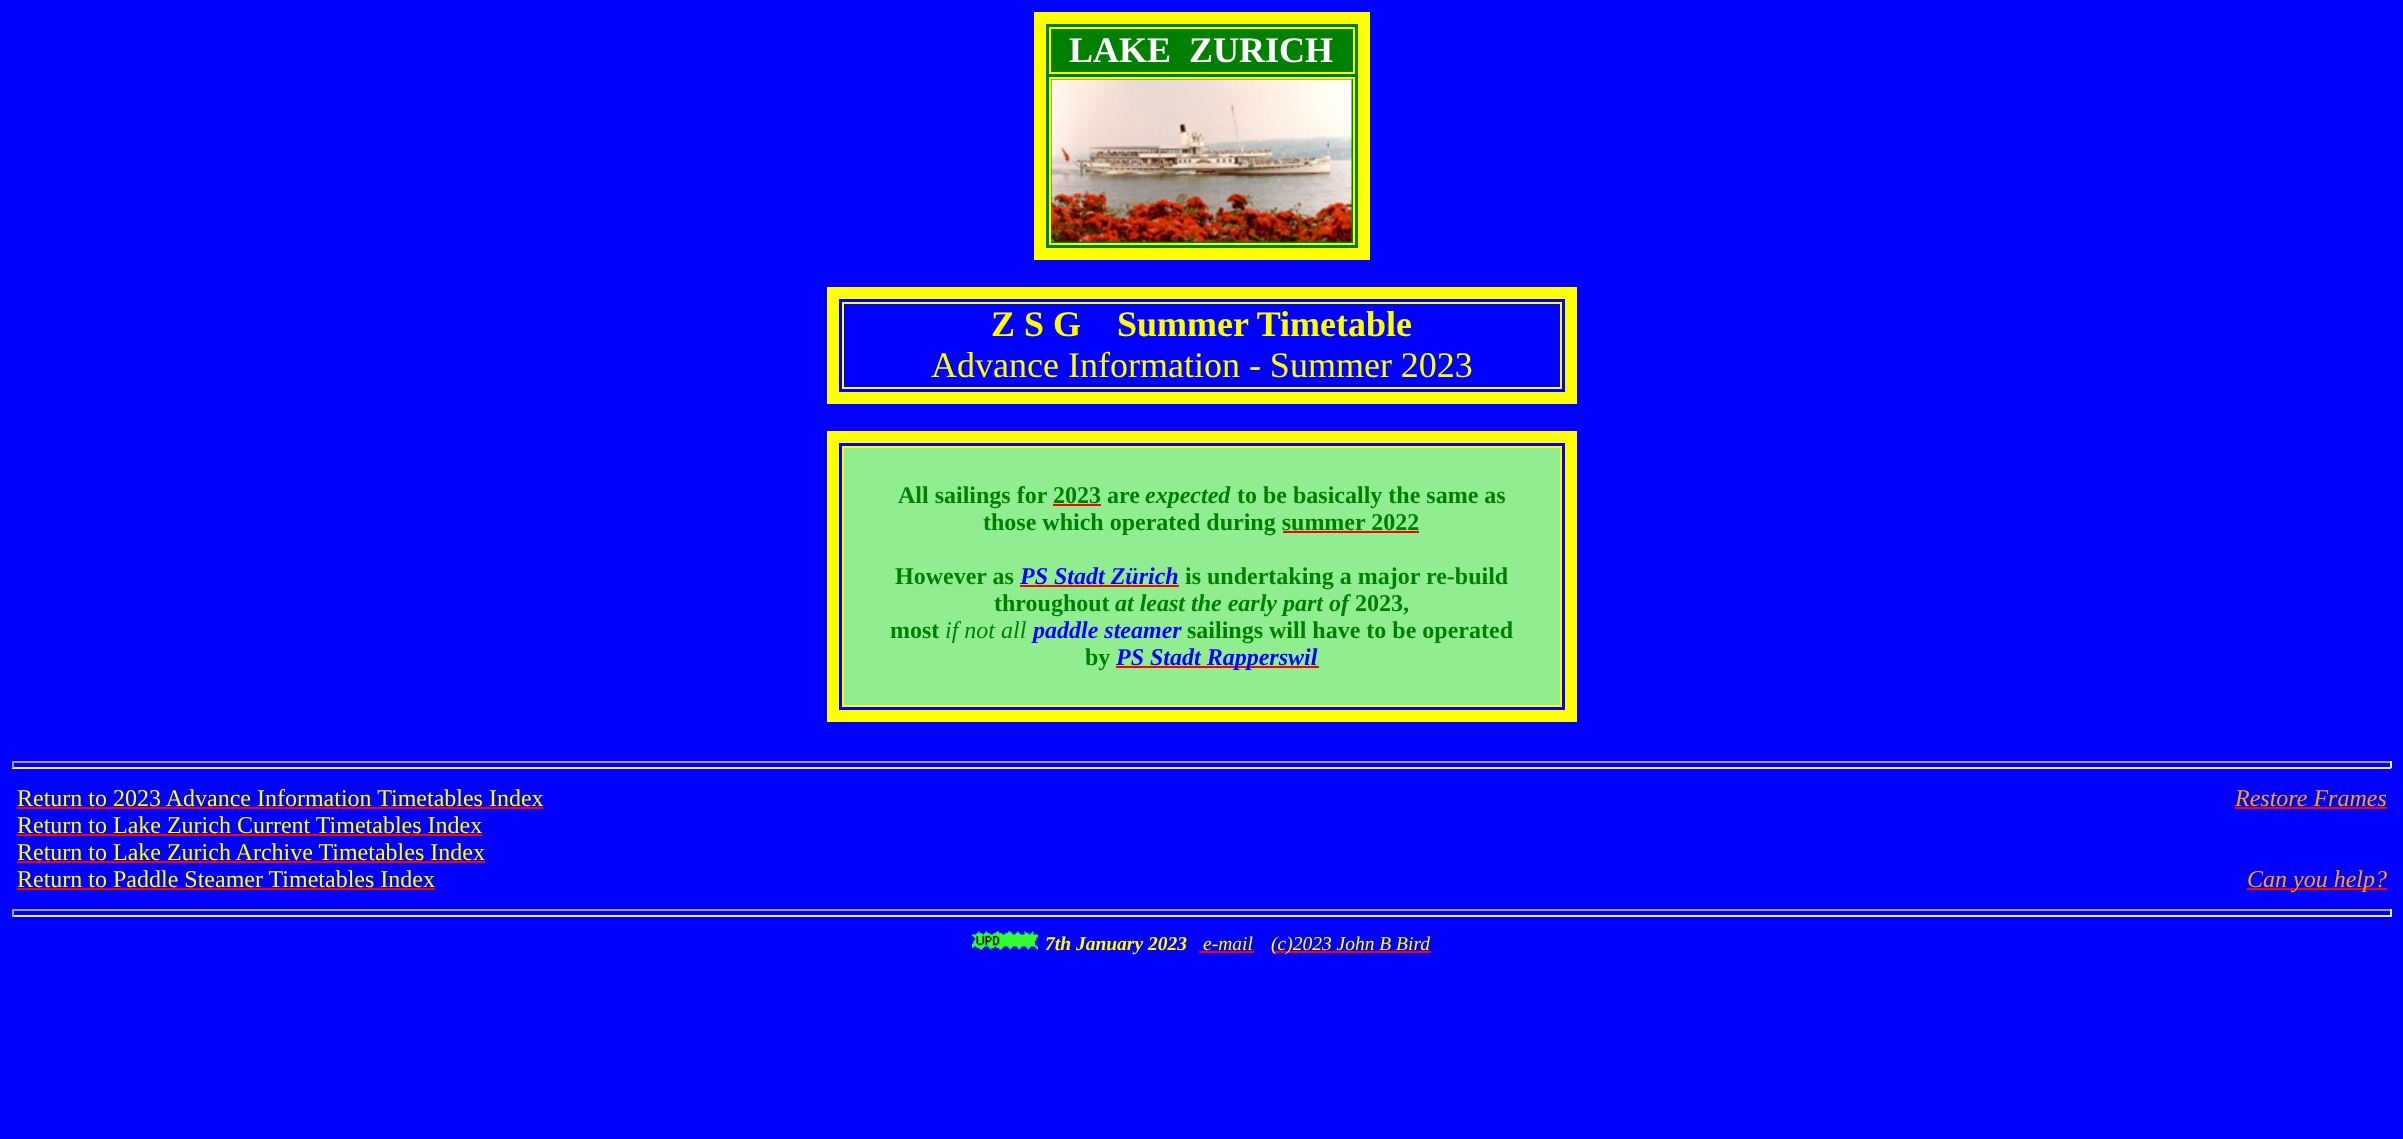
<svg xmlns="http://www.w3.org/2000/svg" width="2403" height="1139">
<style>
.a{font:bold 36px Liberation Serif;fill:#fff}
.b{font:bold 36px Liberation Serif;fill:#ff0}
.c{font:36px Liberation Serif;fill:#ff0}
.d{font:bold 24px Liberation Serif;fill:#008000}
.e{font:italic bold 24px Liberation Serif;fill:#008000}
.f{font:italic bold 24px Liberation Serif;fill:#00f}
.g{font:italic 24px Liberation Serif;fill:#008000}
.h{font:24px Liberation Serif;fill:#ff0}
.i{font:italic 24px Liberation Serif;fill:#ffa500}
.j{font:italic bold 19.5px Liberation Serif;fill:#ff0}
.k{font:italic 19.5px Liberation Serif;fill:#ff0}
</style>
<rect width="100%" height="100%" fill="#00f"/>
<path fill="#008000" stroke="#ff0" stroke-width="12" d="M1040 18h324v236H1040z"/>
<path fill="none" stroke="#ff0" stroke-width="2" d="M1050 28h304v45H1050z"/>
<path fill="none" stroke="#ff0" stroke-width="2" d="M1050 78h304v166H1050z"/>
<image href="1.png" x="1051" y="79" width="301" height="163"/>
<path fill="none" stroke="#ff0" stroke-width="12" d="M833 293h738v105H833z"/>
<path fill="none" stroke="#ff0" stroke-width="2" d="M843 303h718v85H843z"/>
<path fill="none" stroke="#ff0" stroke-width="12" d="M833 437h738v279H833z"/>
<path fill="#90ee90" stroke="#ff0" stroke-width="2" d="M843 447h718v259H843z"/>
<path fill="#f00" d="M1020 585h159v2H1020z"/>
<path fill="#f00" d="M1116 666h203v2H1116z"/>
<path fill="#9f9f9f" d="M12 761h2379v2H12z"/>
<path fill="#eee" d="M2390 761h2v7H2390z"/>
<path fill="#eee" d="M12 767h2379v2H12z"/>
<path fill="#9f9f9f" d="M12 761h2v7H12z"/>
<path fill="#f00" d="M17 807h526v2H17z"/>
<path fill="#f00" d="M17 834h465v2H17z"/>
<path fill="#f00" d="M17 861h468v2H17z"/>
<path fill="#f00" d="M17 888h418v2H17z"/>
<path fill="#f00" d="M2235 807h152v2H2235z"/>
<path fill="#f00" d="M2247 888h140v2H2247z"/>
<path fill="#9f9f9f" d="M12 909h2379v2H12z"/>
<path fill="#eee" d="M2390 909h2v8H2390z"/>
<path fill="#eee" d="M12 915h2379v2H12z"/>
<path fill="#9f9f9f" d="M12 909h2v8H12z"/>
<image href="2.png" x="972" y="931" width="66" height="19"/>
<path fill="#f00" d="M1199 951h55v2H1199z"/>
<path fill="#f00" d="M1272 951h159v2H1272z"/>
<text class="a" xml:space="preserve" x="1069" y="62">LAKE  ZURICH</text>
<text class="b" xml:space="preserve" x="991" y="336">Z S G    Summer Timetable</text>
<text class="c" x="931" y="377">Advance Information - Summer 2023</text>
<text class="d" x="898" y="503">All sailings for 2023 are</text>
<path fill="#f00" d="M1053 504h48v2H1053z"/>
<text class="e" x="1145" y="503">expected</text>
<text class="d" x="1237" y="503">to be basically the same as</text>
<text class="d" x="983" y="530">those which operated during summer 2022</text>
<path fill="#f00" d="M1283 531h136v2H1283z"/>
<text class="d" x="895" y="584">However as</text>
<text class="f" x="1020" y="584">PS Stadt Zürich</text>
<text class="d" x="1185" y="584">is undertaking a major re-build</text>
<text class="d" x="994" y="611">throughout</text>
<text class="e" x="1115" y="611">at least the early part of</text>
<text class="d" x="1355" y="611">2023,</text>
<text class="d" x="890" y="638">most</text>
<text class="g" x="945" y="638">if not all</text>
<text class="f" x="1033" y="638">paddle steamer</text>
<text class="d" x="1187" y="638">sailings will have to be operated</text>
<text class="d" x="1085" y="665">by</text>
<text class="f" x="1116" y="665">PS Stadt Rapperswil</text>
<text class="h" x="17" y="806">Return to 2023 Advance Information Timetables Index</text>
<text class="h" x="17" y="833">Return to Lake Zurich Current Timetables Index</text>
<text class="h" x="17" y="860">Return to Lake Zurich Archive Timetables Index</text>
<text class="h" x="17" y="887">Return to Paddle Steamer Timetables Index</text>
<text class="i" x="2235" y="806">Restore Frames</text>
<text class="i" x="2247" y="887">Can you help?</text>
<text class="j" x="1045" y="950">7th January 2023</text>
<text class="k" x="1203" y="950">e-mail</text>
<text class="k" x="1271" y="950">(c)2023 John B Bird</text>
</svg>
